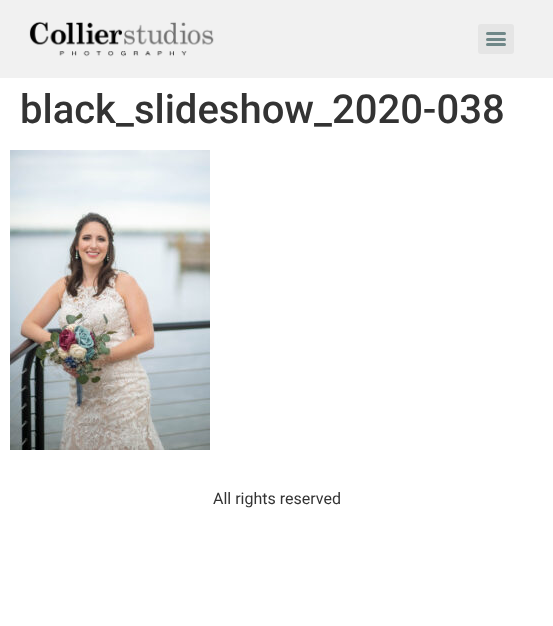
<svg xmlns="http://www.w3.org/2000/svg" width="553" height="626">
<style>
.a{font:500 40px Roboto;fill:#333}
.b{font:16px Roboto;fill:#333}
</style>
<rect width="100%" height="100%" fill="#fff"/>
<path fill="#f1f1f1" d="M0 0h553v78H0z"/>
<image href="1.png" x="29" y="21" width="185" height="36"/>
<rect fill="#e5e5e5" x="478" y="24" width="36" height="30" rx="3"/>
<rect fill="#6f8788" x="486" y="38" width="20" height="3" rx="1.5"/>
<rect fill="#6f8788" x="486" y="32" width="20" height="3" rx="1.5"/>
<rect fill="#6f8788" x="486" y="43" width="20" height="3" rx="1.5"/>
<image href="2.png" x="10" y="150" width="200" height="300"/>
<text class="a" x="20" y="123">black_slideshow_2020-038</text>
<text class="b" x="213" y="504">All rights reserved</text>
</svg>
